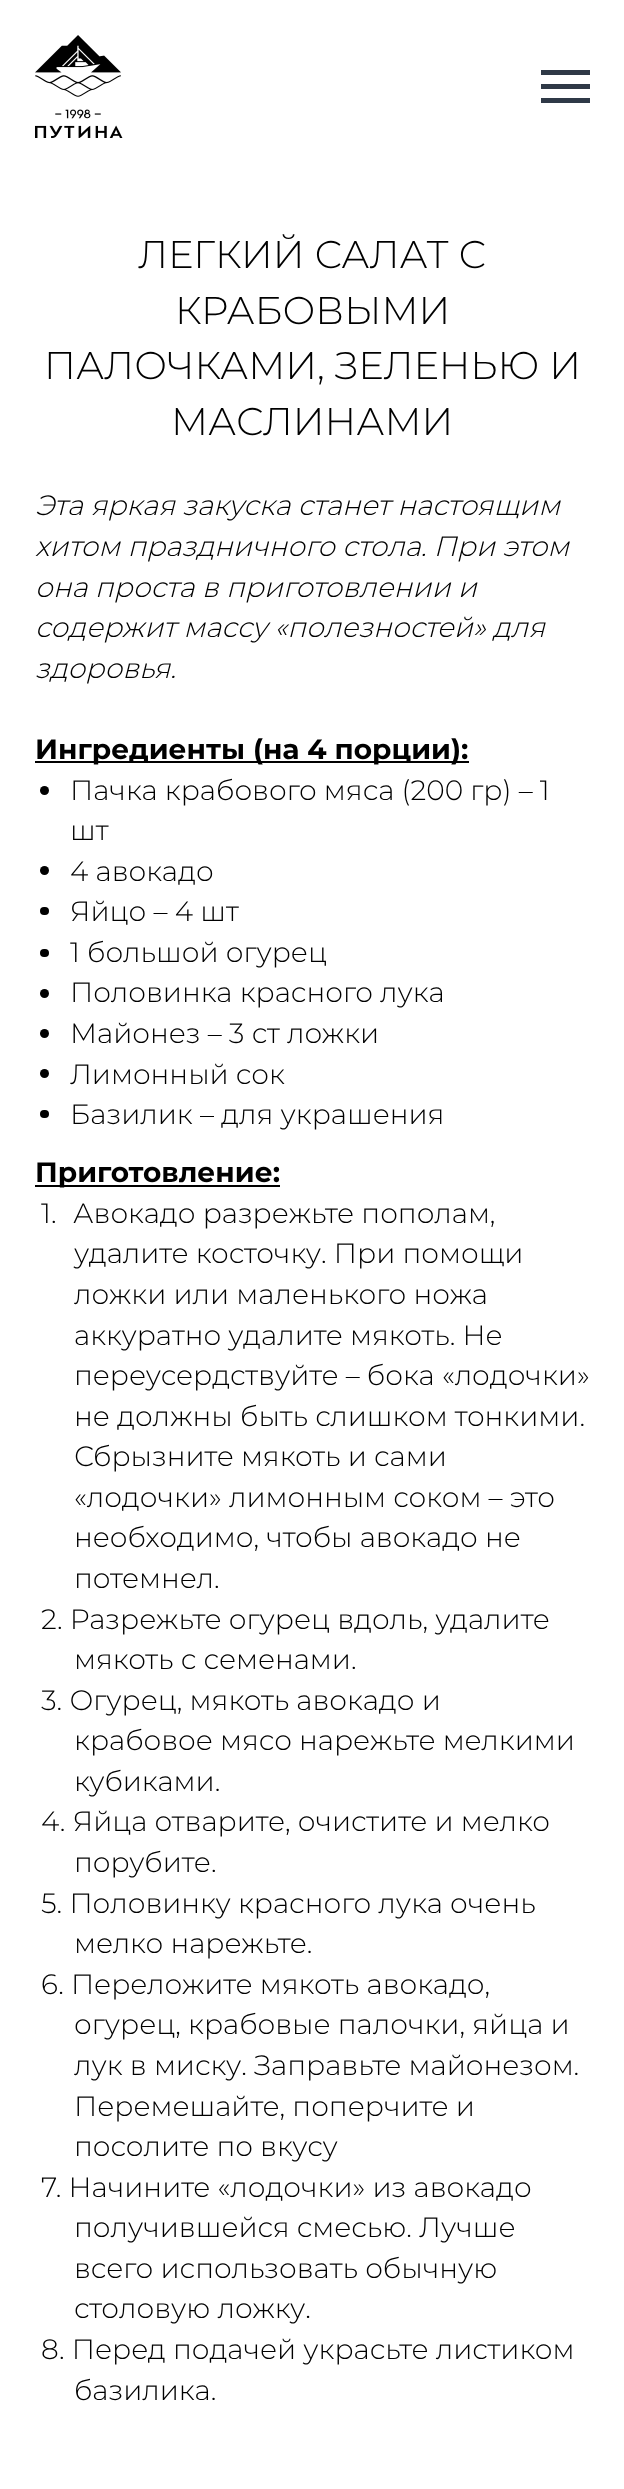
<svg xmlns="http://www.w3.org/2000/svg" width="624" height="2489">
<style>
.a{font:300 38.5px Montserrat;fill:#000}
.b{font:italic 300 28px Montserrat;fill:#000}
.c{font:bold 28px Montserrat;fill:#000}
.d{font:300 28px Montserrat;fill:#000}
</style>
<rect width="100%" height="100%" fill="#fff"/>
<image href="1.png" x="35" y="35" width="88" height="103"/>
<path fill="#2f3947" d="M541 70h49v5H541z"/>
<path fill="#2f3947" d="M541 84h49v5H541z"/>
<path fill="#2f3947" d="M541 98h49v5H541z"/>
<path fill="#000" d="M35 761h434v2H35z"/>
<circle fill="#000" cx="44.5" cy="790.5" r="4.5"/>
<circle fill="#000" cx="44.5" cy="870.5" r="4.5"/>
<rect fill="#000" x="40" y="907" width="9" height="8" rx="4"/>
<rect fill="#000" x="40" y="949" width="9" height="8" rx="4"/>
<circle fill="#000" cx="44.5" cy="993.5" r="4.5"/>
<circle fill="#000" cx="44.5" cy="1033.5" r="4.5"/>
<circle fill="#000" cx="44.5" cy="1073.5" r="4.5"/>
<rect fill="#000" x="40" y="1110" width="9" height="8" rx="4"/>
<path fill="#000" d="M35 1185h245v2H35z"/>
<text class="a" x="138" y="268">ЛЕГКИЙ САЛАТ С</text>
<text class="a" x="175" y="324">КРАБОВЫМИ</text>
<text class="a" x="44" y="379">ПАЛОЧКАМИ, ЗЕЛЕНЬЮ И</text>
<text class="a" x="171" y="435">МАСЛИНАМИ</text>
<text class="b" x="35" y="515">Эта яркая закуска станет настоящим</text>
<text class="b" x="35" y="556">хитом праздничного стола. При этом</text>
<text class="b" x="35" y="597">она проста в приготовлении и</text>
<text class="b" x="35" y="637">содержит массу «полезностей» для</text>
<text class="b" x="35" y="678">здоровья.</text>
<text class="c" x="35" y="759">Ингредиенты (на 4 порции):</text>
<text class="d" x="70" y="800">Пачка крабового мяса (200 гр) – 1</text>
<text class="d" x="70" y="840">шт</text>
<text class="d" x="70" y="881">4 авокадо</text>
<text class="d" x="70" y="921">Яйцо – 4 шт</text>
<text class="d" x="70" y="962">1 большой огурец</text>
<text class="d" x="70" y="1002">Половинка красного лука</text>
<text class="d" x="70" y="1043">Майонез – 3 ст ложки</text>
<text class="d" x="70" y="1084">Лимонный сок</text>
<text class="d" x="70" y="1124">Базилик – для украшения</text>
<text class="c" x="35" y="1182">Приготовление:</text>
<text class="d" x="41" y="1223">1.</text>
<text class="d" x="73" y="1223">Авокадо разрежьте пополам,</text>
<text class="d" x="74" y="1263">удалите косточку. При помощи</text>
<text class="d" x="74" y="1304">ложки или маленького ножа</text>
<text class="d" x="74" y="1345">аккуратно удалите мякоть. Не</text>
<text class="d" x="74" y="1385">переусердствуйте – бока «лодочки»</text>
<text class="d" x="74" y="1426">не должны быть слишком тонкими.</text>
<text class="d" x="74" y="1466">Сбрызните мякоть и сами</text>
<text class="d" x="74" y="1507">«лодочки» лимонным соком – это</text>
<text class="d" x="74" y="1547">необходимо, чтобы авокадо не</text>
<text class="d" x="74" y="1588">потемнел.</text>
<text class="d" x="41" y="1629">2. Разрежьте огурец вдоль, удалите</text>
<text class="d" x="74" y="1669">мякоть с семенами.</text>
<text class="d" x="41" y="1710">3. Огурец, мякоть авокадо и</text>
<text class="d" x="74" y="1750">крабовое мясо нарежьте мелкими</text>
<text class="d" x="74" y="1791">кубиками.</text>
<text class="d" x="41" y="1831">4. Яйца отварите, очистите и мелко</text>
<text class="d" x="74" y="1872">порубите.</text>
<text class="d" x="41" y="1913">5. Половинку красного лука очень</text>
<text class="d" x="74" y="1953">мелко нарежьте.</text>
<text class="d" x="41" y="1994">6. Переложите мякоть авокадо,</text>
<text class="d" x="74" y="2034">огурец, крабовые палочки, яйца и</text>
<text class="d" x="74" y="2075">лук в миску. Заправьте майонезом.</text>
<text class="d" x="74" y="2116">Перемешайте, поперчите и</text>
<text class="d" x="74" y="2156">посолите по вкусу</text>
<text class="d" x="41" y="2197">7. Начините «лодочки» из авокадо</text>
<text class="d" x="74" y="2237">получившейся смесью. Лучше</text>
<text class="d" x="74" y="2278">всего использовать обычную</text>
<text class="d" x="74" y="2318">столовую ложку.</text>
<text class="d" x="41" y="2359">8. Перед подачей украсьте листиком</text>
<text class="d" x="74" y="2400">базилика.</text>
</svg>
